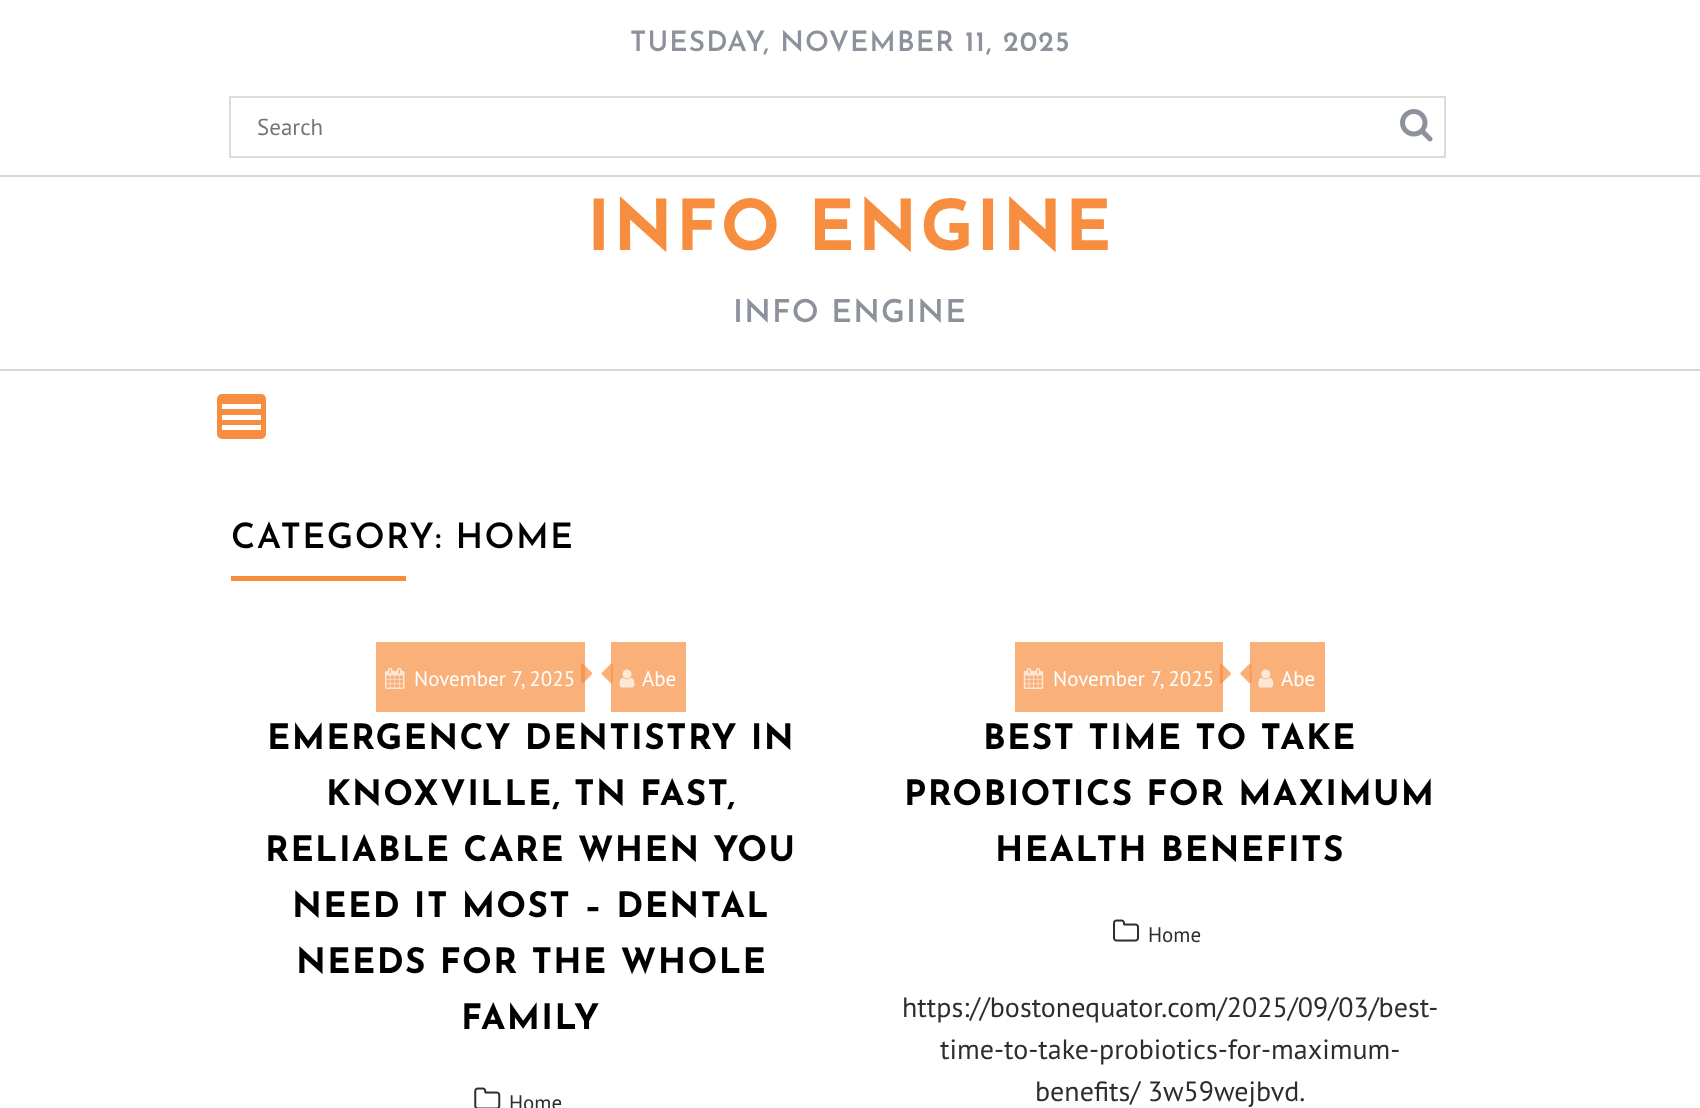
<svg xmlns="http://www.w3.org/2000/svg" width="1700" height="1108">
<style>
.a{font:600 28px Josefin Sans;letter-spacing:1.1px;fill:#8c919b}
.b{font:23px PT Sans;fill:#757575}
.c{font:bold 70px Josefin Sans;letter-spacing:2.75px;fill:#f78e3f}
.d{font:600 31.5px Josefin Sans;letter-spacing:1.25px;fill:#8c919b}
.e{font:600 35px Josefin Sans;letter-spacing:1.4px;fill:#000}
.f{font:21px PT Sans;fill:#fff}
.g{font:bold 35px Josefin Sans;letter-spacing:1.4px;fill:#000}
.h{font:21px PT Sans;fill:#2d2d2d}
.i{font:28px PT Sans;fill:#2d2d2d}
</style>
<rect width="100%" height="100%" fill="#fff"/>
<path fill="#d7d7d7" d="M0 175h1700v2H0z"/>
<path fill="none" stroke="#dbdbdb" stroke-width="2" d="M230 97h1215v60H230z"/>
<image href="1.png" x="1400" y="109" width="33" height="33"/>
<path fill="#d7d7d7" d="M0 369h1700v2H0z"/>
<rect fill="#f78e3f" stroke="#fff" stroke-width="2" x="216" y="393" width="51" height="47" rx="6"/>
<path fill="#fff" d="M222 425h39v5H222z"/>
<path fill="#fff" d="M222 415h39v5H222z"/>
<path fill="#fff" d="M222 404h39v5H222z"/>
<path fill="#f78e3f" d="M231 576h175v5H231z"/>
<path fill="#f9b079" d="M376 642h209v70H376z"/>
<image href="2.png" x="385" y="668" width="20" height="21"/>
<image href="3.png" x="581" y="663" width="12" height="21"/>
<path fill="#f9b079" d="M611 642h75v70H611z"/>
<image href="4.png" x="601" y="663" width="12" height="21"/>
<image href="5.png" x="619" y="669" width="16" height="19"/>
<image href="6.png" x="474" y="1087" width="27" height="21"/>
<path fill="#f9b079" d="M1015 642h208v70H1015z"/>
<image href="7.png" x="1023" y="668" width="21" height="21"/>
<image href="8.png" x="1219" y="663" width="12" height="21"/>
<path fill="#f9b079" d="M1250 642h75v70H1250z"/>
<image href="9.png" x="1240" y="663" width="12" height="21"/>
<image href="10.png" x="1258" y="669" width="16" height="19"/>
<image href="11.png" x="1113" y="919" width="26" height="23"/>
<text class="a" x="630" y="51">TUESDAY, NOVEMBER 11, 2025</text>
<text class="b" x="257" y="135">Search</text>
<text class="c" x="587" y="250">INFO ENGINE</text>
<text class="d" x="733" y="322">INFO ENGINE</text>
<text class="e" x="231" y="548">CATEGORY: HOME</text>
<text class="f" x="414" y="686">November 7, 2025</text>
<text class="f" x="642" y="686">Abe</text>
<text class="g" x="267" y="749">EMERGENCY DENTISTRY IN</text>
<text class="g" x="326" y="805">KNOXVILLE, TN FAST,</text>
<text class="g" x="265" y="861">RELIABLE CARE WHEN YOU</text>
<text class="g" x="292" y="917">NEED IT MOST – DENTAL</text>
<text class="g" x="296" y="973">NEEDS FOR THE WHOLE</text>
<text class="g" x="461" y="1029">FAMILY</text>
<text class="h" x="509" y="1110">Home</text>
<text class="f" x="1053" y="686">November 7, 2025</text>
<text class="f" x="1281" y="686">Abe</text>
<text class="g" x="983" y="749">BEST TIME TO TAKE</text>
<text class="g" x="904" y="805">PROBIOTICS FOR MAXIMUM</text>
<text class="g" x="995" y="861">HEALTH BENEFITS</text>
<text class="h" x="1148" y="942">Home</text>
<text class="i" x="902" y="1017">https://bostonequator.com/2025/09/03/best-</text>
<text class="i" x="940" y="1059">time-to-take-probiotics-for-maximum-</text>
<text class="i" x="1035" y="1101">benefits/ 3w59wejbvd.</text>
</svg>
